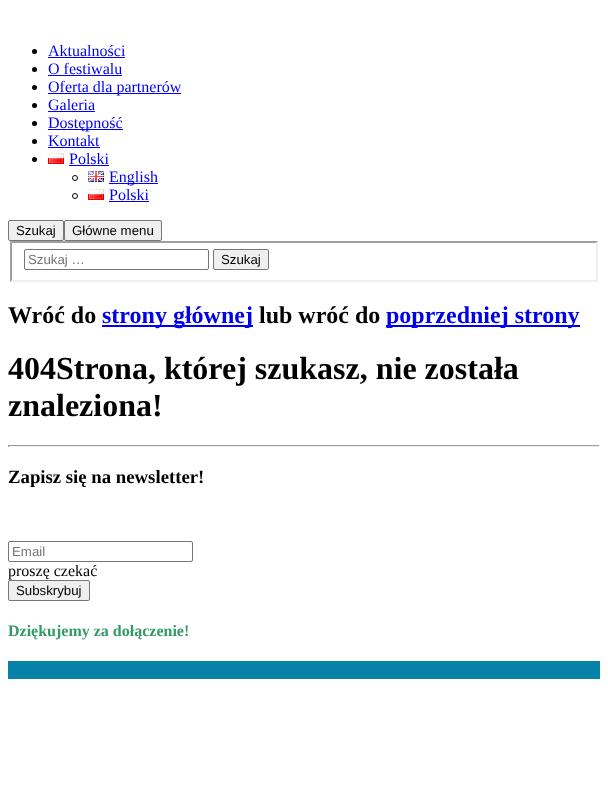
<svg xmlns="http://www.w3.org/2000/svg" width="608" height="801">
<style>
.a{font:16px Liberation Serif;fill:#00e}
.b{font:13.25px Liberation Sans;fill:#000}
.c{font:13.25px Liberation Sans;fill:#757575}
.d{font:bold 24px Liberation Serif;fill:#000}
.e{font:bold 24px Liberation Serif;fill:#00e}
.f{font:bold 32px Liberation Serif;fill:#000}
.g{font:bold 18.75px Liberation Serif;fill:#000}
.h{font:16px Liberation Serif;fill:#000}
.i{font:bold 16px Liberation Serif;fill:#396}
</style>
<rect width="100%" height="100%" fill="#fff"/>
<circle fill="#000" cx="34.5" cy="51.5" r="2.5"/>
<path fill="#00e" d="M48 57h77v1H48z"/>
<circle fill="#000" cx="34.5" cy="69.5" r="2.5"/>
<path fill="#00e" d="M48 75h74v1H48z"/>
<circle fill="#000" cx="34.5" cy="87.5" r="2.5"/>
<path fill="#00e" d="M48 93h133v1H48z"/>
<circle fill="#000" cx="34.5" cy="105.5" r="2.5"/>
<path fill="#00e" d="M48 111h47v1H48z"/>
<circle fill="#000" cx="34.5" cy="123.5" r="2.5"/>
<path fill="#00e" d="M48 129h75v1H48z"/>
<circle fill="#000" cx="34.5" cy="141.5" r="2.5"/>
<path fill="#00e" d="M48 147h52v1H48z"/>
<circle fill="#000" cx="34.5" cy="159.5" r="2.5"/>
<image href="1.png" x="48" y="153" width="16" height="11"/>
<path fill="#00e" d="M69 165h40v1H69z"/>
<circle fill="none" stroke="#000" cx="75" cy="178" r="2.5"/>
<image href="2.png" x="88" y="171" width="16" height="11"/>
<path fill="#00e" d="M109 183h49v1H109z"/>
<circle fill="none" stroke="#000" cx="75" cy="196" r="2.5"/>
<image href="1.png" x="88" y="189" width="16" height="11"/>
<path fill="#00e" d="M109 201h40v1H109z"/>
<rect fill="#efefef" stroke="#767676" x="8.5" y="220.5" width="55" height="20" rx="1.5"/>
<rect fill="#efefef" stroke="#767676" x="64.5" y="220.5" width="97" height="20" rx="1.5"/>
<path fill="#9f9f9f" d="M10 241h588l-2 2h-584z"/>
<path fill="#efefef" d="M598 241v41l-2-2v-37z"/>
<path fill="#efefef" d="M598 282h-588l2-2h584z"/>
<path fill="#9f9f9f" d="M10 282v-41l2 2v37z"/>
<rect fill="none" stroke="#767676" x="24.5" y="249.5" width="184" height="20" rx="1.5"/>
<rect fill="#efefef" stroke="#767676" x="213.5" y="249.5" width="55" height="20" rx="1.5"/>
<path fill="#00e" d="M102 325h151v2H102z"/>
<path fill="#00e" d="M386 325h194v2H386z"/>
<path fill="#9f9f9f" d="M8 445h592v1H8z"/>
<path fill="#eee" d="M599 445h1v2H599z"/>
<path fill="#eee" d="M8 446h592v1H8z"/>
<path fill="#9f9f9f" d="M8 445h1v2H8z"/>
<rect fill="none" stroke="#767676" x="8.5" y="541.5" width="184" height="20" rx="1.5"/>
<rect fill="#efefef" stroke="#767676" x="8.5" y="580.5" width="81" height="20" rx="1.5"/>
<path fill="#0682a7" d="M8 661h592v18H8z"/>
<text class="a" x="48" y="56">Aktualności</text>
<text class="a" x="48" y="74">O festiwalu</text>
<text class="a" x="48" y="92">Oferta dla partnerów</text>
<text class="a" x="48" y="110">Galeria</text>
<text class="a" x="48" y="128">Dostępność</text>
<text class="a" x="48" y="146">Kontakt</text>
<text class="a" x="69" y="164">Polski</text>
<text class="a" x="109" y="182">English</text>
<text class="a" x="109" y="200">Polski</text>
<text class="b" x="16" y="235">Szukaj</text>
<text class="b" x="72" y="235">Główne menu</text>
<text class="c" x="28" y="264">Szukaj …</text>
<text class="b" x="221" y="264">Szukaj</text>
<text class="d" x="8" y="323">Wróć do</text>
<text class="e" x="102" y="323">strony głównej</text>
<text class="d" x="259" y="323">lub wróć do</text>
<text class="e" x="386" y="323">poprzedniej strony</text>
<text class="f" x="8" y="379">404Strona, której szukasz, nie została</text>
<text class="f" x="8" y="416">znaleziona!</text>
<text class="g" x="8" y="483">Zapisz się na newsletter!</text>
<text class="c" x="12" y="556">Email</text>
<text class="h" x="8" y="576">proszę czekać</text>
<text class="b" x="16" y="595">Subskrybuj</text>
<text class="i" x="8" y="636">Dziękujemy za dołączenie!</text>
</svg>
